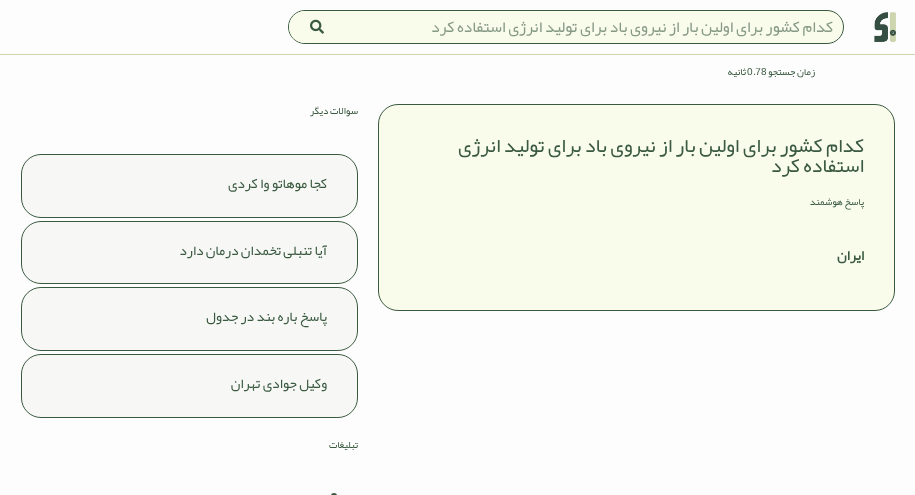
<svg xmlns="http://www.w3.org/2000/svg" width="915" height="495">
<style>
.a{font:16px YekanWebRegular;direction:rtl;fill:#869a84}
.b{font:10px YekanWebRegular;direction:rtl;fill:#3a5a40}
.c{font:10px Liberation Sans;fill:#3a5a40}
.d{font:10px YekanWebRegular;fill:#3a5a40}
.e{font:20px YekanWebRegular;direction:rtl;fill:#3a5a40}
.f{font:bold 14px YekanWebRegular;direction:rtl;fill:#3a5a40}
.g{font:14px YekanWebRegular;direction:rtl;fill:#3a5a40}
</style>
<rect width="100%" height="100%" fill="#fdfdfd"/>
<path fill="#ccd5ae" d="M0 54h915v1H0z"/>
<image href="1.png" x="874" y="12" width="22" height="30"/>
<rect fill="#f9fbeb" stroke="#3a5a40" x="288.5" y="10.5" width="555" height="33" rx="16.5"/>
<path fill="#f9fbeb" d="M305 11h41v32h-41c-9 0-16-7-16-16c0-9 7-16 16-16z"/>
<image href="2.png" x="310" y="19" width="14" height="15"/>
<rect fill="#f9fbeb" stroke="#3a5a40" x="378.5" y="104.5" width="516" height="206" rx="19.5"/>
<rect fill="#f7f8f6" stroke="#3a5a40" x="21.5" y="154.5" width="336" height="63" rx="19.5"/>
<rect fill="#f7f8f6" stroke="#3a5a40" x="21.5" y="221.5" width="336" height="62" rx="19.5"/>
<rect fill="#f7f8f6" stroke="#3a5a40" x="21.5" y="287.5" width="336" height="63" rx="19.5"/>
<rect fill="#f7f8f6" stroke="#3a5a40" x="21.5" y="354.5" width="336" height="63" rx="19.5"/>
<rect fill="#3a5a40" x="331" y="493" width="6" height="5" rx="3"/>
<text class="a" x="833" y="32">کدام کشور برای اولین بار از نیروی باد برای تولید انرژی استفاده کرد</text>
<text class="b" x="815" y="75">زمان جستجو</text>
<text class="c" x="747" y="75">0 78</text>
<text class="b" x="746" y="75">ثانیه</text>
<text class="d" x="753" y="75">.</text>
<text class="e" x="864" y="152">کدام کشور برای اولین بار از نیروی باد برای تولید انرژی</text>
<text class="e" x="864" y="172">استفاده کرد</text>
<text class="b" x="864" y="205">پاسخ هوشمند</text>
<text class="f" x="864" y="260">ایران</text>
<text class="b" x="358" y="114">سوالات دیگر</text>
<text class="g" x="327" y="188">کجا موهاتو وا کردی</text>
<text class="g" x="327" y="255">آیا تنبلی تخمدان درمان دارد</text>
<text class="g" x="327" y="321">پاسخ باره بند در جدول</text>
<text class="g" x="327" y="388">وکیل جوادی تهران</text>
<text class="b" x="358" y="448">تبلیغات</text>
</svg>
